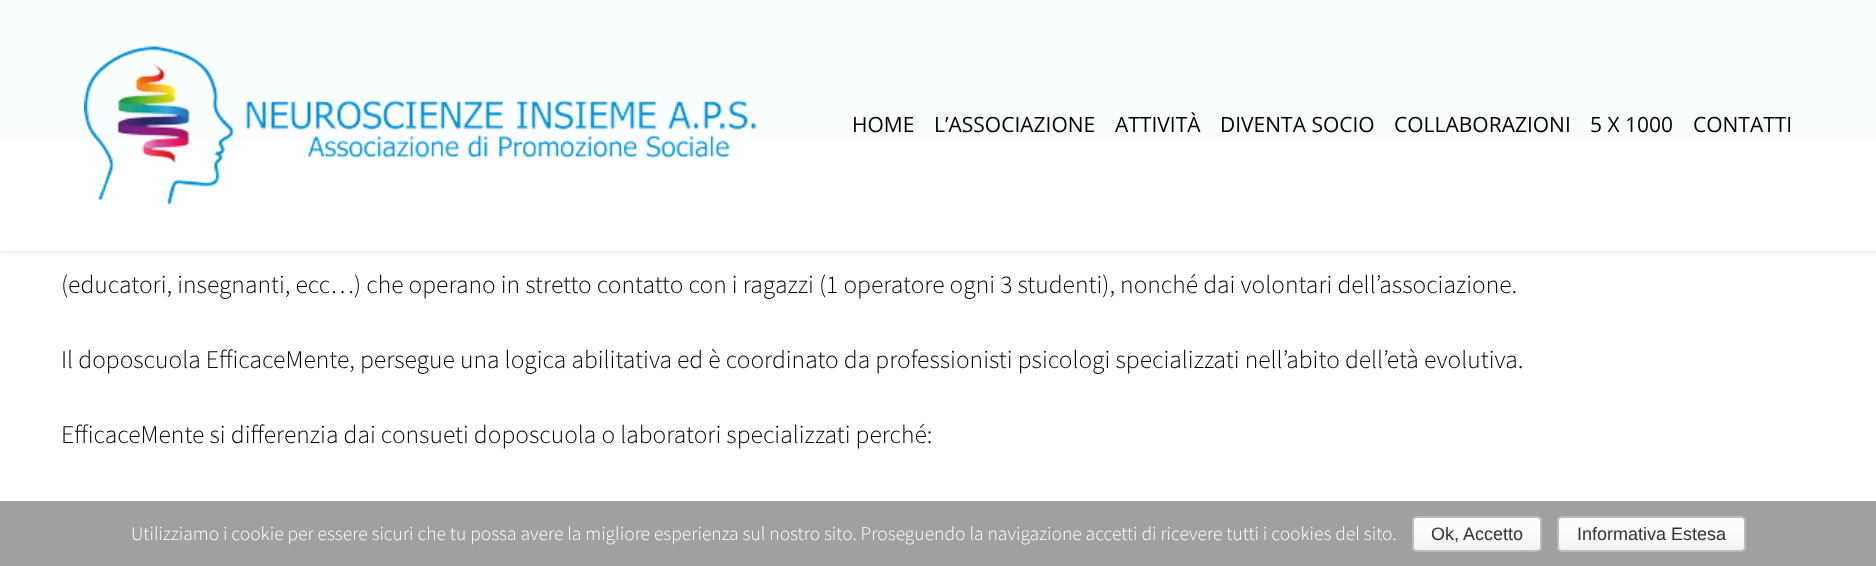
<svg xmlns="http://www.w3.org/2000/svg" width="1876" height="566">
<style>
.a{font:21px Open Sans;fill:#000}
.b{font:300 25.5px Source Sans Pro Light;fill:#000}
.c{font:300 19.5px Source Sans Pro Light;fill:#fff}
.d{font:18px Liberation Sans;fill:#333}
</style>
<defs>
<clipPath id="clip1"><path d="M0 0h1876v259h-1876zm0 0h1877v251h-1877z" clip-rule="evenodd"/></clipPath>
<clipPath id="clip2"><rect x="1412" y="516" width="130" height="36" rx="5"/></clipPath>
<linearGradient id="g1" gradientUnits="userSpaceOnUse" x1="1477" y1="518" x2="1477" y2="551"><stop offset="0" stop-color="#fefefe"/><stop offset="1" stop-color="#f4f4f4"/></linearGradient>
<clipPath id="clip3"><rect x="1557" y="516" width="189" height="36" rx="5"/></clipPath>
<linearGradient id="g2" gradientUnits="userSpaceOnUse" x1="1652" y1="518" x2="1652" y2="551"><stop offset="0" stop-color="#fefefe"/><stop offset="1" stop-color="#f4f4f4"/></linearGradient>
</defs>
<rect width="100%" height="100%" fill="#fff"/>
<path fill="#5bb3dc" d="M0 0h1876v141H0z"/>
<g clip-path="url(#clip1)">
<path fill="#0000001f" filter="blur(2px)" d="M0 2h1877v250H0z"/>
</g>
<path fill="#fffffff7" d="M0 0h1876v251H0z"/>
<image href="1.png" x="84" y="46" width="673" height="158"/>
<path fill="#a0a0a0" d="M0 501h1876v65H0z"/>
<g clip-path="url(#clip2)">
<path fill="url(#g1)" d="M1412 518h130v33H1412z"/>
</g>
<rect fill="none" stroke="#bbb" stroke-width="2" x="1413" y="517" width="128" height="34" rx="4"/>
<g clip-path="url(#clip3)">
<path fill="url(#g2)" d="M1557 518h189v33H1557z"/>
</g>
<rect fill="none" stroke="#bbb" stroke-width="2" x="1558" y="517" width="187" height="34" rx="4"/>
<text class="a" x="852" y="132">HOME</text>
<text class="a" x="934" y="132">L’ASSOCIAZIONE</text>
<text class="a" x="1115" y="132">ATTIVITÀ</text>
<text class="a" x="1220" y="132">DIVENTA SOCIO</text>
<text class="a" x="1394" y="132">COLLABORAZIONI</text>
<text class="a" x="1590" y="132">5 X 1000</text>
<text class="a" x="1693" y="132">CONTATTI</text>
<text class="b" x="61" y="293">(educatori, insegnanti, ecc…) che operano in stretto contatto con i ragazzi (1 operatore ogni 3 studenti), nonché dai volontari dell’associazione.</text>
<text class="b" x="61" y="368">Il doposcuola EfficaceMente, persegue una logica abilitativa ed è coordinato da professionisti psicologi specializzati nell’abito dell’età evolutiva.</text>
<text class="b" x="61" y="443">EfficaceMente si differenzia dai consueti doposcuola o laboratori specializzati perché:</text>
<text class="c" x="131" y="540">Utilizziamo i cookie per essere sicuri che tu possa avere la migliore esperienza sul nostro sito. Proseguendo la navigazione accetti di ricevere tutti i cookies del sito.</text>
<text class="d" x="1431" y="540">Ok, Accetto</text>
<text class="d" x="1577" y="540">Informativa Estesa</text>
</svg>
